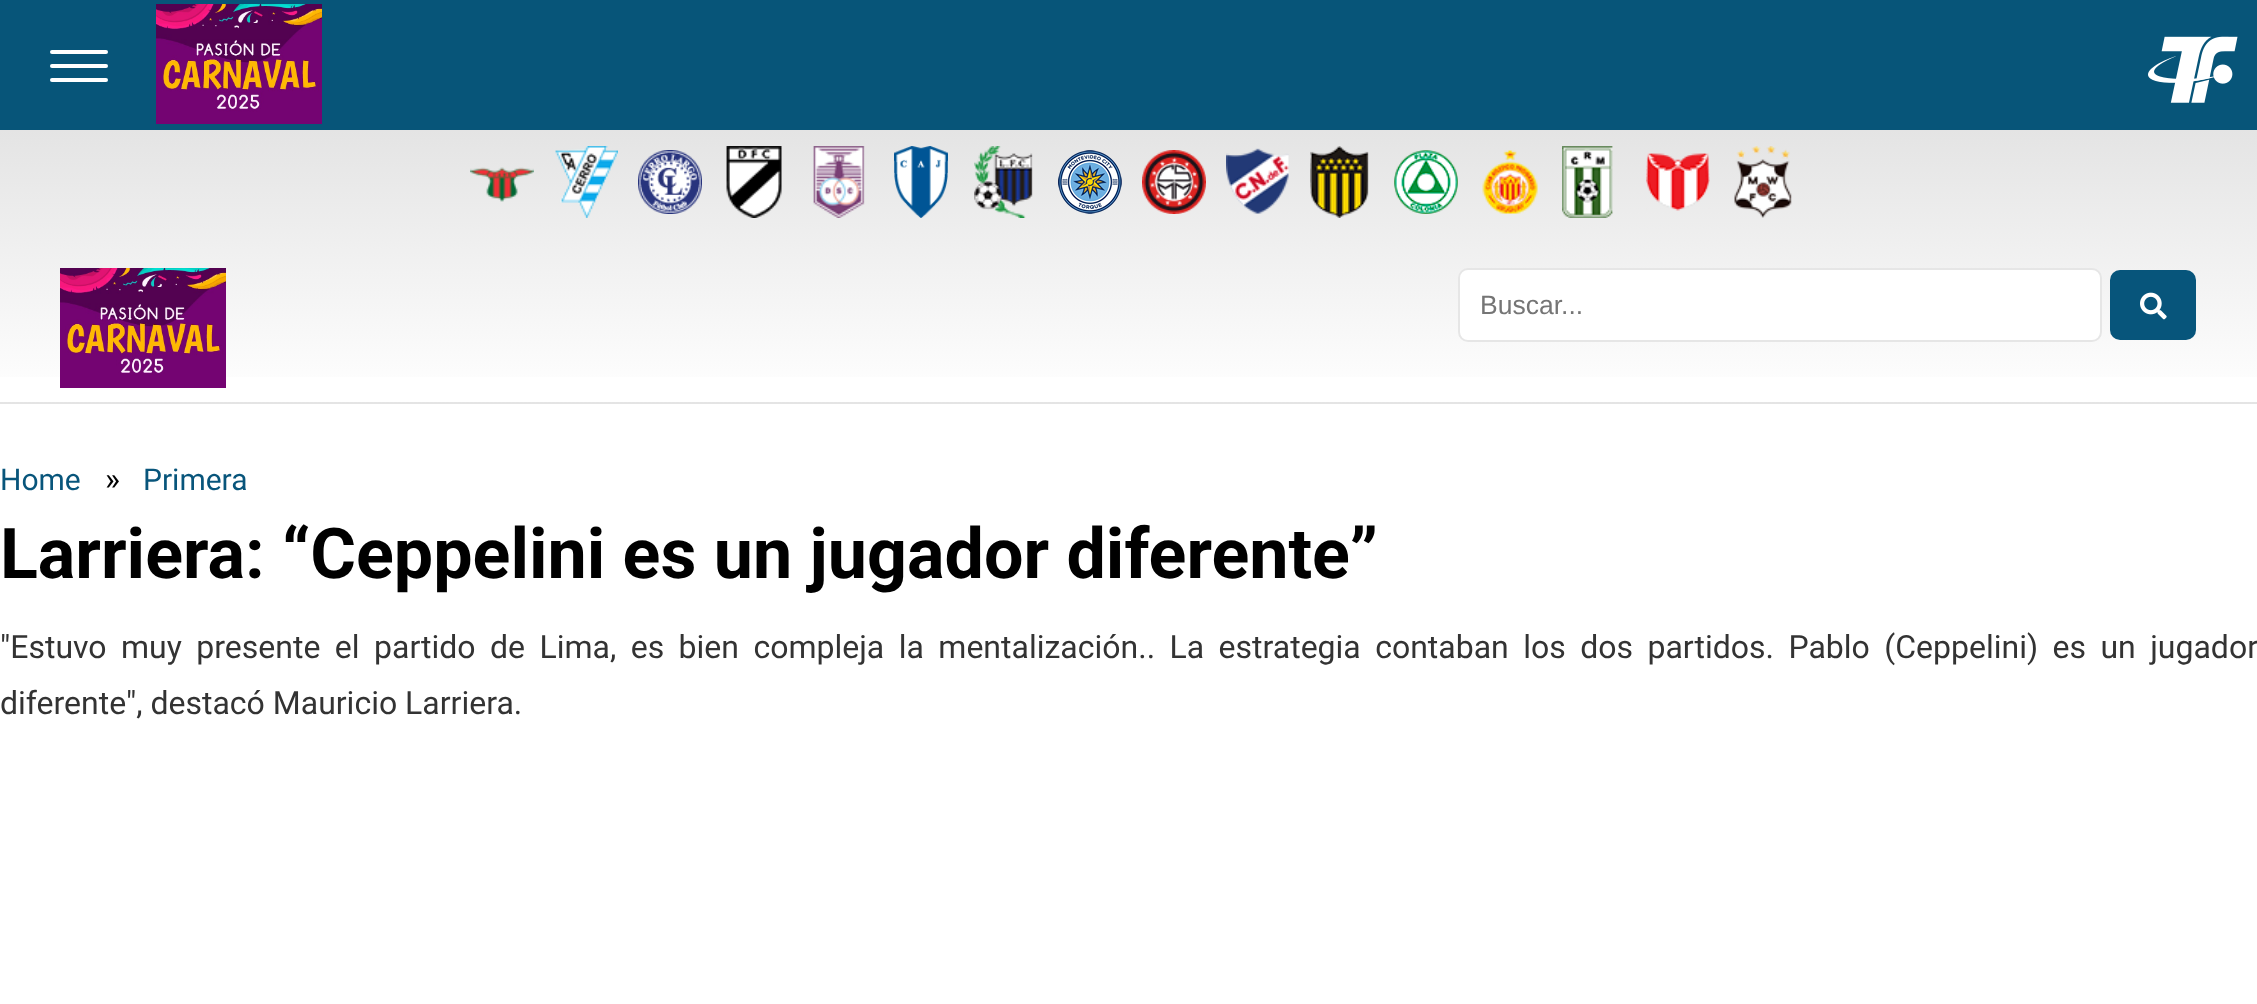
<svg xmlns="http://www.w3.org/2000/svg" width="2257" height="1004">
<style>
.a{font:26.5px Liberation Sans;fill:#757575}
.b{font:30px Roboto;fill:#08557b}
.c{font:32px Roboto;fill:#000}
.d{font:bold 70px Roboto;fill:#000}
.e{font:32px Roboto;fill:#333}
</style>
<defs>
<linearGradient id="g1" gradientUnits="userSpaceOnUse" x1="1129" y1="402" x2="1129" y2="130"><stop offset="0" stop-color="#fff"/><stop offset="1" stop-color="#e4e4e4"/></linearGradient>
<linearGradient id="g2" gradientUnits="userSpaceOnUse" x1="1129" y1="674" x2="1129" y2="402"><stop offset="0" stop-color="#fff"/><stop offset="1" stop-color="#e4e4e4"/></linearGradient>
</defs>
<rect width="100%" height="100%" fill="#fff"/>
<path fill="#075579" d="M0 0h2257v130H0z"/>
<rect fill="#fff" x="50" y="50" width="58" height="4" rx="2"/>
<rect fill="#fff" x="50" y="64" width="58" height="4" rx="2"/>
<rect fill="#fff" x="50" y="78" width="58" height="4" rx="2"/>
<image href="1.png" x="156" y="4" width="166" height="120"/>
<image href="2.png" x="2148" y="36" width="90" height="67"/>
<path fill="url(#g1)" d="M0 130h2257v247H0z"/>
<path fill="url(#g2)" d="M0 402h2257v2H0z"/>
<image href="3.png" x="470" y="167" width="64" height="35"/>
<image href="4.png" x="555" y="146" width="63" height="72"/>
<image href="5.png" x="638" y="150" width="64" height="64"/>
<image href="6.png" x="726" y="146" width="56" height="72"/>
<image href="7.png" x="813" y="146" width="52" height="72"/>
<image href="8.png" x="894" y="146" width="54" height="72"/>
<image href="9.png" x="974" y="146" width="59" height="72"/>
<image href="10.png" x="1058" y="150" width="64" height="64"/>
<image href="11.png" x="1142" y="150" width="64" height="64"/>
<image href="12.png" x="1226" y="148" width="63" height="66"/>
<image href="13.png" x="1310" y="146" width="59" height="72"/>
<image href="14.png" x="1394" y="150" width="64" height="64"/>
<image href="15.png" x="1482" y="150" width="56" height="64"/>
<image href="16.png" x="1562" y="146" width="51" height="72"/>
<image href="17.png" x="1646" y="153" width="64" height="58"/>
<image href="18.png" x="1734" y="146" width="58" height="72"/>
<image href="19.png" x="60" y="268" width="166" height="120"/>
<rect fill="#fff" stroke="#e6e6e6" stroke-width="2" x="1459" y="269" width="642" height="72" rx="9"/>
<rect fill="#07557b" x="2110" y="270" width="86" height="70" rx="10"/>
<image href="20.png" x="2140" y="292" width="27" height="28"/>
<text class="a" x="1480" y="314">Buscar...</text>
<text class="b" x="0" y="490">Home</text>
<text class="c" x="105" y="490">»</text>
<text class="b" x="143" y="490">Primera</text>
<text class="d" x="0" y="578">Larriera: “Ceppelini es un jugador diferente”</text>
<text class="e" x="0" y="658" word-spacing="6.5">"Estuvo muy presente el partido de Lima, es bien compleja la mentalización.. La estrategia contaban los dos partidos. Pablo (Ceppelini) es un jugador</text>
<text class="e" x="0" y="714">diferente", destacó Mauricio Larriera.</text>
</svg>
